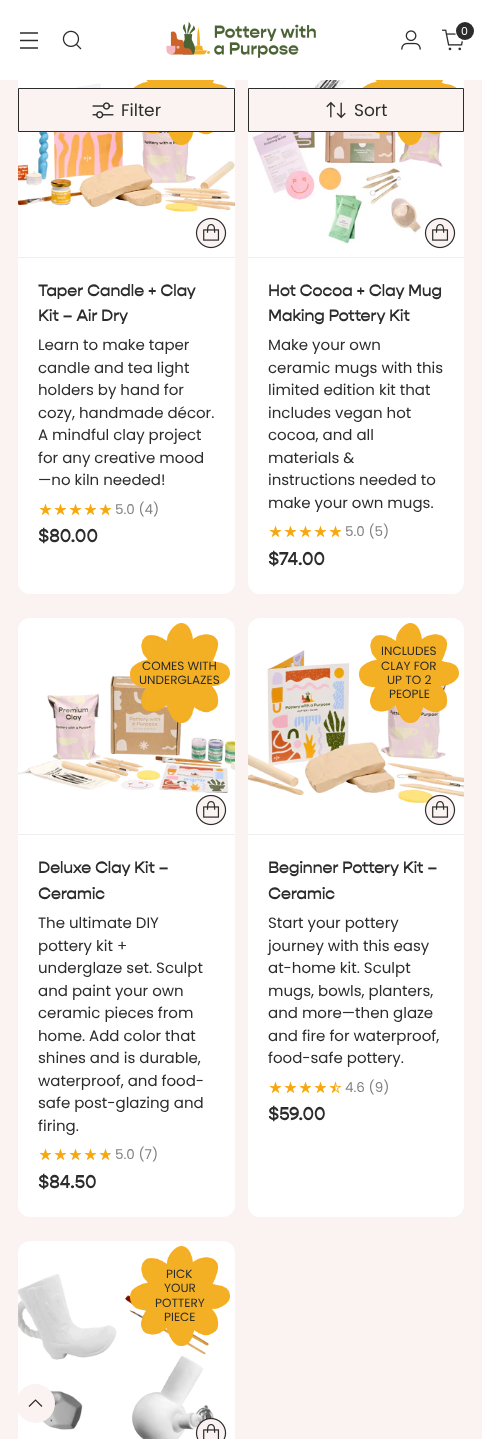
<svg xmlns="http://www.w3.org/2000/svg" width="482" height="1439">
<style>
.a{font:11px Poppins;fill:#fff}
.b{font:17px Poppins;fill:#2c2c2c}
.c{font:bold 16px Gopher;fill:#2c2c2c}
.d{font:15px Poppins;fill:#2c2c2c}
.e{font:13.5px Poppins;fill:#808080}
.f{font:bold 18px Gopher;fill:#2c2c2c}
.g{font:12px Poppins;fill:#2c2c2c}
</style>
<rect width="100%" height="100%" fill="#fbf3f2"/>
<rect fill="#fff" x="18" y="40" width="217" height="554" rx="12"/>
<rect fill="#fff" x="248" y="40" width="216" height="554" rx="12"/>
<path fill="#fff" d="M0 0h482v80H0z"/>
<path fill="none" stroke="#2c2c2c" stroke-width="1.3" d="M20 40.5h18m-18-7.5h18m-18 15h18"/>
<image href="1.png" x="62" y="30" width="20" height="20"/>
<image href="2.png" x="166" y="22" width="150" height="36"/>
<image href="3.png" x="401" y="30" width="20" height="20"/>
<image href="4.png" x="442" y="29" width="22" height="22"/>
<circle fill="none" stroke="#fff" stroke-width="2" cx="465.5" cy="31.5" r="9.5"/>
<circle fill="#2c2c2c" cx="465" cy="31" r="9"/>
<image href="8.png" x="18" y="83" width="217" height="129"/>
<image href="7.png" x="133" y="80" width="95" height="65"/>
<path fill="#fbf3f2" stroke="#2c2c2c" d="M18.5 88.5h216v43H18.5z"/>
<image href="5.png" x="92" y="102" width="22" height="17"/>
<image href="11.png" x="252" y="80" width="198" height="164"/>
<image href="12.png" x="362" y="80" width="95" height="65"/>
<path fill="#fbf3f2" stroke="#2c2c2c" d="M248.5 88.5h215v43H248.5z"/>
<image href="6.png" x="326" y="101" width="20" height="18"/>
<path fill="#eee" d="M18 257h217v1H18z"/>
<image href="9.png" x="195" y="217" width="32" height="32"/>
<image href="10.png" x="39" y="503" width="12" height="12"/>
<image href="10.png" x="54" y="503" width="12" height="12"/>
<image href="10.png" x="69" y="503" width="12" height="12"/>
<image href="10.png" x="84" y="503" width="12" height="12"/>
<image href="10.png" x="99" y="503" width="12" height="12"/>
<path fill="#eee" d="M248 257h216v1H248z"/>
<image href="9.png" x="424" y="217" width="32" height="32"/>
<image href="10.png" x="269" y="525" width="12" height="12"/>
<image href="10.png" x="284" y="525" width="12" height="12"/>
<image href="10.png" x="299" y="525" width="12" height="12"/>
<image href="10.png" x="314" y="525" width="12" height="12"/>
<image href="10.png" x="329" y="525" width="12" height="12"/>
<rect fill="#fff" x="18" y="618" width="217" height="599" rx="12"/>
<path fill="#eee" d="M18 834h217v1H18z"/>
<image href="14.png" x="18" y="675" width="217" height="118"/>
<image href="13.png" x="130" y="623" width="100" height="100"/>
<image href="9.png" x="195" y="794" width="32" height="32"/>
<image href="10.png" x="39" y="1148" width="12" height="12"/>
<image href="10.png" x="54" y="1148" width="12" height="12"/>
<image href="10.png" x="69" y="1148" width="12" height="12"/>
<image href="10.png" x="84" y="1148" width="12" height="12"/>
<image href="10.png" x="99" y="1148" width="12" height="12"/>
<rect fill="#fff" x="248" y="618" width="216" height="599" rx="12"/>
<path fill="#eee" d="M248 834h216v1H248z"/>
<image href="16.png" x="248" y="650" width="216" height="153"/>
<image href="15.png" x="359" y="623" width="100" height="100"/>
<image href="17.png" x="424" y="794" width="32" height="32"/>
<image href="10.png" x="269" y="1081" width="12" height="12"/>
<image href="10.png" x="284" y="1081" width="12" height="12"/>
<image href="10.png" x="299" y="1081" width="12" height="12"/>
<image href="10.png" x="314" y="1081" width="12" height="12"/>
<image href="18.png" x="329" y="1081" width="12" height="12"/>
<rect fill="#fff" x="18" y="1241" width="217" height="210" rx="12"/>
<image href="20.png" x="18" y="1273" width="196" height="166"/>
<image href="19.png" x="130" y="1246" width="100" height="100"/>
<image href="21.png" x="195" y="1417" width="32" height="22"/>
<circle fill="#fbf3f2" cx="35.5" cy="1403.5" r="19.5"/>
<path fill="none" stroke="#2c2c2c" stroke-width="1.2" d="M42 1406.5l-6.5-6.5l-6.5 6.5"/>
<text class="a" x="461" y="35">0</text>
<text class="b" x="121" y="116">Filter</text>
<text class="b" x="354" y="116">Sort</text>
<text class="c" x="38" y="296">Taper Candle + Clay</text>
<text class="c" x="38" y="321">Kit – Air Dry</text>
<text class="d" x="38" y="350">Learn to make taper</text>
<text class="d" x="38" y="373">candle and tea light</text>
<text class="d" x="38" y="395">holders by hand for</text>
<text class="d" x="38" y="418">cozy, handmade décor.</text>
<text class="d" x="38" y="440">A mindful clay project</text>
<text class="d" x="38" y="463">for any creative mood</text>
<text class="d" x="38" y="485">—no kiln needed!</text>
<text class="e" x="115" y="514">5.0 (4)</text>
<text class="f" x="38" y="542">$80.00</text>
<text class="c" x="268" y="296">Hot Cocoa + Clay Mug</text>
<text class="c" x="268" y="321">Making Pottery Kit</text>
<text class="d" x="268" y="350">Make your own</text>
<text class="d" x="268" y="373">ceramic mugs with this</text>
<text class="d" x="268" y="395">limited edition kit that</text>
<text class="d" x="268" y="418">includes vegan hot</text>
<text class="d" x="268" y="440">cocoa, and all</text>
<text class="d" x="268" y="463">materials &amp;</text>
<text class="d" x="268" y="485">instructions needed to</text>
<text class="d" x="268" y="508">make your own mugs.</text>
<text class="e" x="345" y="536">5.0 (5)</text>
<text class="f" x="268" y="565">$74.00</text>
<text class="g" x="142" y="670">COMES WITH</text>
<text class="g" x="139" y="684">UNDERGLAZES</text>
<text class="c" x="38" y="873">Deluxe Clay Kit –</text>
<text class="c" x="38" y="899">Ceramic</text>
<text class="d" x="38" y="928">The ultimate DIY</text>
<text class="d" x="38" y="951">pottery kit +</text>
<text class="d" x="38" y="973">underglaze set. Sculpt</text>
<text class="d" x="38" y="996">and paint your own</text>
<text class="d" x="38" y="1018">ceramic pieces from</text>
<text class="d" x="38" y="1041">home. Add color that</text>
<text class="d" x="38" y="1063">shines and is durable,</text>
<text class="d" x="38" y="1086">waterproof, and food-</text>
<text class="d" x="38" y="1108">safe post-glazing and</text>
<text class="d" x="38" y="1131">firing.</text>
<text class="e" x="115" y="1159">5.0 (7)</text>
<text class="f" x="38" y="1188">$84.50</text>
<text class="g" x="381" y="655">INCLUDES</text>
<text class="g" x="381" y="670">CLAY FOR</text>
<text class="g" x="387" y="684">UP TO 2</text>
<text class="g" x="389" y="698">PEOPLE</text>
<text class="c" x="268" y="873">Beginner Pottery Kit –</text>
<text class="c" x="268" y="899">Ceramic</text>
<text class="d" x="268" y="928">Start your pottery</text>
<text class="d" x="268" y="951">journey with this easy</text>
<text class="d" x="268" y="973">at-home kit. Sculpt</text>
<text class="d" x="268" y="996">mugs, bowls, planters,</text>
<text class="d" x="268" y="1018">and more—then glaze</text>
<text class="d" x="268" y="1041">and fire for waterproof,</text>
<text class="d" x="268" y="1063">food-safe pottery.</text>
<text class="e" x="345" y="1092">4.6 (9)</text>
<text class="f" x="268" y="1120">$59.00</text>
<text class="g" x="166" y="1278">PICK</text>
<text class="g" x="164" y="1292">YOUR</text>
<text class="g" x="155" y="1307">POTTERY</text>
<text class="g" x="164" y="1321">PIECE</text>
</svg>
